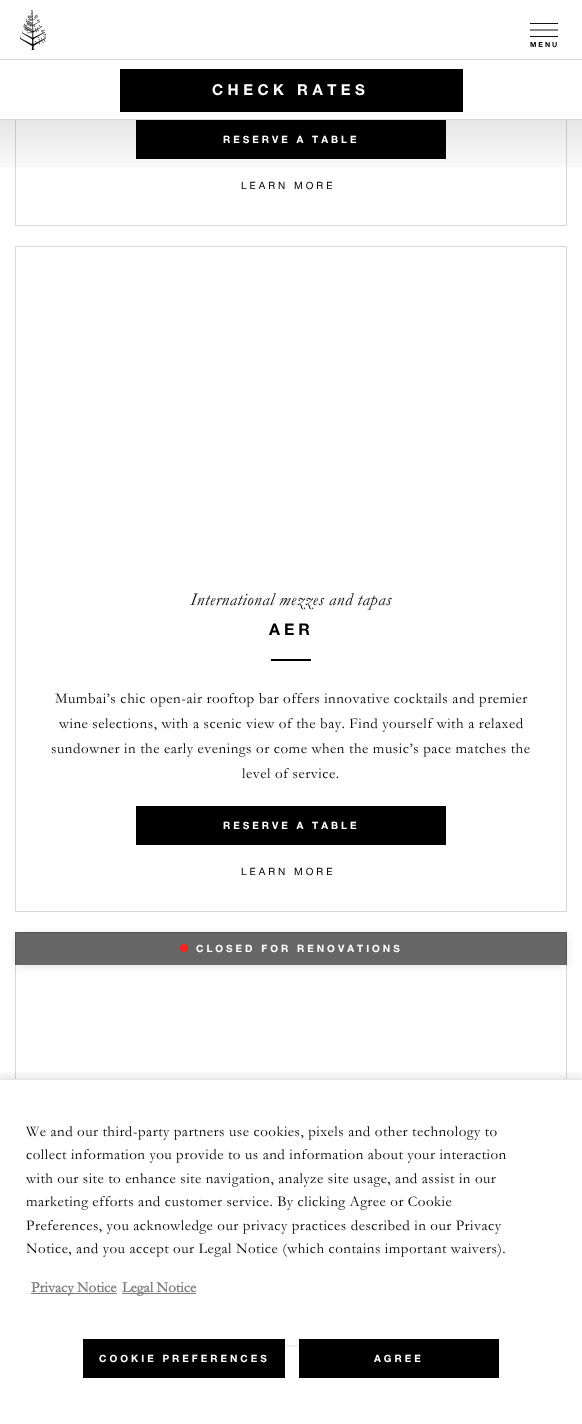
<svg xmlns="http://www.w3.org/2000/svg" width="582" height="1424">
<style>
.a{font:bold 7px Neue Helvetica;letter-spacing:2px;fill:#000}
.b{font:bold 15px Neue Helvetica;letter-spacing:4.5px;fill:#fff}
.c{font:bold 10px Neue Helvetica;letter-spacing:3px;fill:#fff}
.d{font:10px Neue Helvetica;letter-spacing:3px;fill:#000}
.e{font:italic 18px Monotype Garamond;letter-spacing:0.5px;fill:#000}
.f{font:bold 16px Neue Helvetica;letter-spacing:4px;fill:#000}
.g{font:15px Monotype Garamond;letter-spacing:0.5px;fill:#000}
.h{font:15px Monotype Garamond;letter-spacing:0.47px;fill:#000}
.i{font:bold 15px Monotype Garamond;fill:#7d7d7d}
</style>
<defs>
<linearGradient id="g1" gradientUnits="userSpaceOnUse" x1="291" y1="120" x2="291" y2="180"><stop offset="0" stop-color="#000" stop-opacity="0.1"/><stop offset="1" stop-color="#000" stop-opacity="0"/></linearGradient>
<clipPath id="clip1"><path d="M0 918h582v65h-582zm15 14h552v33h-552z" clip-rule="evenodd"/></clipPath>
<clipPath id="clip2"><path d="M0 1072h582v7H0z"/></clipPath>
</defs>
<rect width="100%" height="100%" fill="#fff"/>
<path fill="none" stroke="#d8d8d8" d="M15.5 -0.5h551v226H15.5z"/>
<path fill="#fff" d="M15 0h552v59H15z"/>
<path fill="#d8d8d8" d="M0 59h582v1H0z"/>
<image href="1.png" x="20" y="10" width="27" height="40"/>
<image href="2.png" x="530" y="23" width="28" height="14"/>
<path fill="#fff" d="M15 60h552v59H15z"/>
<path fill="#d8d8d8" d="M0 119h582v1H0z"/>
<path fill="#000" d="M120 69h343v43H120z"/>
<path fill="#000" d="M136 120h310v39H136z"/>
<path fill="url(#g1)" d="M0 120h582v47H0z"/>
<path fill="none" stroke="#d8d8d8" d="M15.5 246.5h551v665H15.5z"/>
<path fill="#000" d="M271 659h40v2H271z"/>
<path fill="#000" d="M136 806h310v39H136z"/>
<path fill="none" stroke="#d8d8d8" d="M15.5 932.5h551v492H15.5z"/>
<path fill="#000" d="M285 1345h14v2H285z"/>
<g clip-path="url(#clip1)">
<path fill="#0000001a" filter="blur(5px)" d="M15 934h552v33H15z"/>
</g>
<path fill="#00000099" d="M15 932h552v33H15z"/>
<circle fill="#ff1e1e" cx="184" cy="948" r="4"/>
<g clip-path="url(#clip2)">
<path fill="#0000001a" filter="blur(5px)" d="M-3 1076h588v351H-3z"/>
</g>
<path fill="#fffffff2" d="M15 1080h552v344H15z"/>
<path fill="#e8e8e8" d="M0 1079h582v1H0z"/>
<path fill="#7d7d7d" d="M31 1293h86v1H31z"/>
<path fill="#7d7d7d" d="M122 1293h74v1H122z"/>
<path fill="#000" d="M83 1339h202v39H83z"/>
<path fill="#000" d="M299 1339h200v39H299z"/>
<text class="a" x="530" y="47">MENU</text>
<text class="b" x="212" y="95">CHECK RATES</text>
<text class="c" x="223" y="143">RESERVE A TABLE</text>
<text class="d" x="241" y="189">LEARN MORE</text>
<text class="e" x="190" y="605">International mezzes and tapas</text>
<text class="f" x="269" y="635">AER</text>
<text class="g" x="55" y="703">Mumbai’s chic open-air rooftop bar offers innovative cocktails and premier</text>
<text class="g" x="59" y="728">wine selections, with a scenic view of the bay. Find yourself with a relaxed</text>
<text class="g" x="51" y="753">sundowner in the early evenings or come when the music’s pace matches the</text>
<text class="g" x="242" y="778">level of service.</text>
<text class="c" x="223" y="829">RESERVE A TABLE</text>
<text class="d" x="241" y="875">LEARN MORE</text>
<text class="c" x="196" y="952">CLOSED FOR RENOVATIONS</text>
<text class="h" x="26" y="1136">We and our third-party partners use cookies, pixels and other technology to</text>
<text class="h" x="26" y="1159">collect information you provide to us and information about your interaction</text>
<text class="h" x="26" y="1183">with our site to enhance site navigation, analyze site usage, and assist in our</text>
<text class="h" x="26" y="1206">marketing efforts and customer service. By clicking Agree or Cookie</text>
<text class="h" x="26" y="1230">Preferences, you acknowledge our privacy practices described in our Privacy</text>
<text class="h" x="26" y="1253">Notice, and you accept our Legal Notice (which contains important waivers).</text>
<text class="i" x="31" y="1292">Privacy Notice</text>
<text class="i" x="122" y="1292">Legal Notice</text>
<text class="c" x="99" y="1362">COOKIE PREFERENCES</text>
<text class="c" x="374" y="1362">AGREE</text>
</svg>
